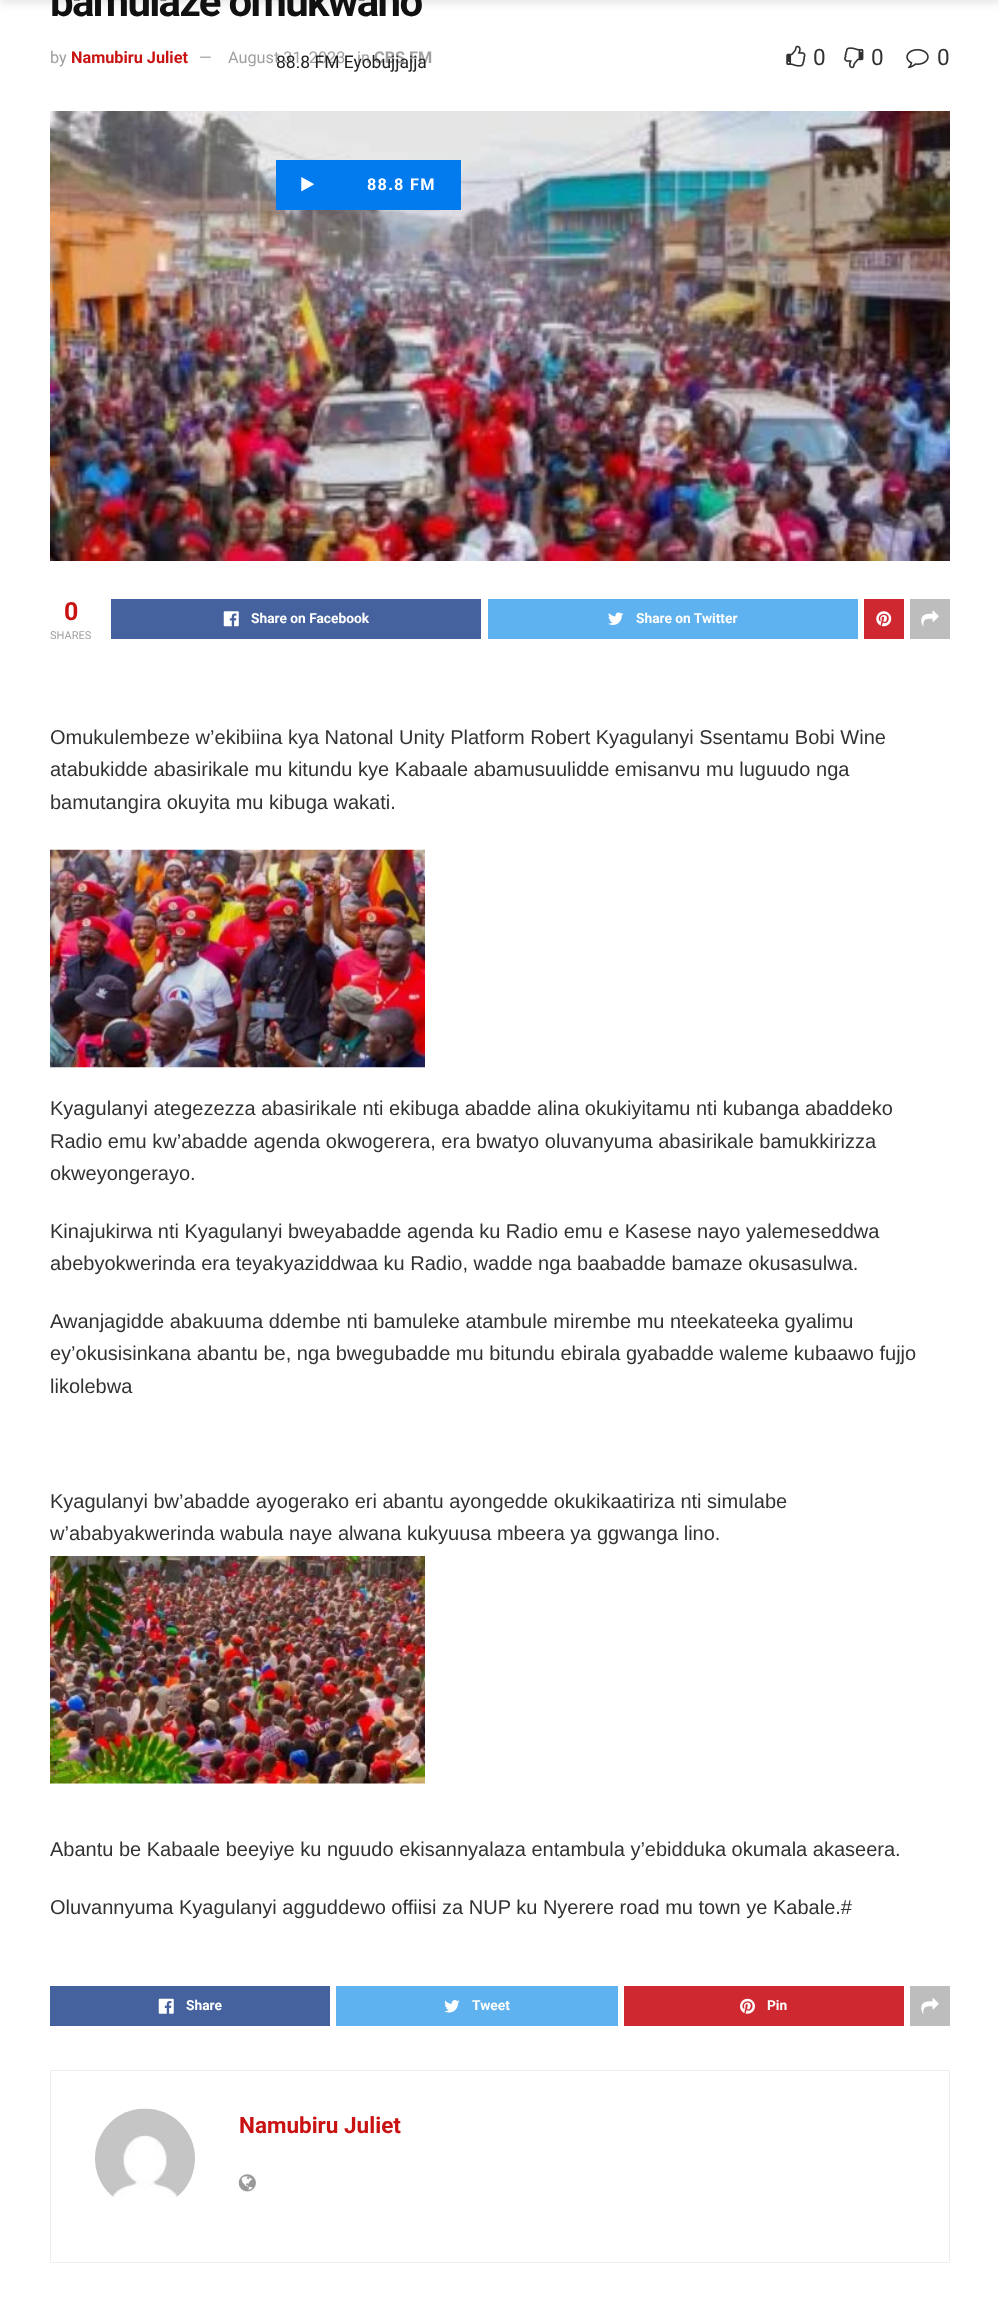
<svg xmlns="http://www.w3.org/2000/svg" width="999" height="2313">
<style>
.a{font:bold 42px Roboto;letter-spacing:-1.7px;fill:#111}
.b{font:16.25px Roboto;fill:#a0a0a0}
.c{font:bold 16.25px Roboto;fill:#c91212}
.d{font:bold 16.25px Roboto;fill:#a0a0a0}
.e{font:22.5px Roboto;fill:#323232}
.f{font:bold 25px Roboto;fill:#c91212}
.g{font:11px Roboto;fill:#a0a0a0}
.h{font:bold 13.75px Roboto;fill:#fff}
.i{font:20px Liberation Sans;fill:#323232}
.j{font:bold 22.5px Roboto;fill:#c91212}
.k{font:17.5px Roboto;fill:#212121}
.l{font:bold 16.25px Roboto;letter-spacing:1.25px;fill:#fff}
</style>
<rect width="100%" height="100%" fill="#fff"/>
<image href="1.png" x="786" y="45" width="20" height="22"/>
<image href="2.png" x="844" y="47" width="20" height="22"/>
<image href="3.png" x="906" y="48" width="23" height="21"/>
<image href="4.png" x="50" y="111" width="900" height="450"/>
<path fill="#45629f" d="M111 599h370v40H111z"/>
<image href="5.png" x="223" y="611" width="16" height="16"/>
<path fill="#5eb2ef" d="M488 599h370v40H488z"/>
<image href="6.png" x="608" y="612" width="16" height="13"/>
<path fill="#cf2830" d="M864 599h40v40H864z"/>
<image href="7.png" x="876" y="611" width="16" height="16"/>
<path fill="#bdbdbd" d="M910 599h40v40H910z"/>
<image href="8.png" x="921" y="610" width="18" height="17"/>
<image href="9.png" x="50" y="849" width="375" height="219"/>
<image href="10.png" x="50" y="1556" width="375" height="228"/>
<path fill="#45629f" d="M50 1986h280v40H50z"/>
<image href="11.png" x="158" y="1998" width="16" height="16"/>
<path fill="#5eb2ef" d="M336 1986h282v40H336z"/>
<image href="12.png" x="444" y="2000" width="16" height="13"/>
<path fill="#cf2830" d="M624 1986h280v40H624z"/>
<image href="13.png" x="740" y="1998" width="15" height="16"/>
<path fill="#bdbdbd" d="M910 1986h40v40H910z"/>
<image href="14.png" x="921" y="1998" width="18" height="16"/>
<path fill="none" stroke="#eee" d="M50.5 2070.5h899v192H50.5z"/>
<image href="15.png" x="95" y="2108" width="100" height="89"/>
<image href="16.png" x="238" y="2174" width="18" height="18"/>
<path fill="#0000001a" filter="blur(4px)" d="M0 -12h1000v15H0z"/>
<path fill="#017bee" d="M276 160h185v50H276z"/>
<image href="17.png" x="301" y="177" width="13" height="15"/>
<text class="a" x="50" y="16">bamulaze omukwano</text>
<text class="b" x="50" y="63">by</text>
<text class="c" x="71" y="63">Namubiru Juliet</text>
<text class="b" x="199" y="63">—</text>
<text class="b" x="228" y="63">August 31, 2023</text>
<text class="b" x="357" y="63">in</text>
<text class="d" x="374" y="63">CBS FM</text>
<text class="e" x="813" y="65">0</text>
<text class="e" x="871" y="65">0</text>
<text class="e" x="937" y="65">0</text>
<text class="f" x="64" y="620">0</text>
<text class="g" x="50" y="639">SHARES</text>
<text class="h" x="251" y="623">Share on Facebook</text>
<text class="h" x="636" y="623">Share on Twitter</text>
<text class="i" x="50" y="744">Omukulembeze w’ekibiina kya Natonal Unity Platform Robert Kyagulanyi Ssentamu Bobi Wine</text>
<text class="i" x="50" y="776">atabukidde abasirikale mu kitundu kye Kabaale abamusuulidde emisanvu mu luguudo nga</text>
<text class="i" x="50" y="809">bamutangira okuyita mu kibuga wakati.</text>
<text class="i" x="50" y="1115">Kyagulanyi ategezezza abasirikale nti ekibuga abadde alina okukiyitamu nti kubanga abaddeko</text>
<text class="i" x="50" y="1148">Radio emu kw’abadde agenda okwogerera, era bwatyo oluvanyuma abasirikale bamukkirizza</text>
<text class="i" x="50" y="1180">okweyongerayo.</text>
<text class="i" x="50" y="1238">Kinajukirwa nti Kyagulanyi bweyabadde agenda ku Radio emu e Kasese nayo yalemeseddwa</text>
<text class="i" x="50" y="1270">abebyokwerinda era teyakyaziddwaa ku Radio, wadde nga baabadde bamaze okusasulwa.</text>
<text class="i" x="50" y="1328">Awanjagidde abakuuma ddembe nti bamuleke atambule mirembe mu nteekateeka gyalimu</text>
<text class="i" x="50" y="1360">ey’okusisinkana abantu be, nga bwegubadde mu bitundu ebirala gyabadde waleme kubaawo fujjo</text>
<text class="i" x="50" y="1393">likolebwa</text>
<text class="i" x="50" y="1508">Kyagulanyi bw’abadde ayogerako eri abantu ayongedde okukikaatiriza nti simulabe</text>
<text class="i" x="50" y="1540">w’ababyakwerinda wabula naye alwana kukyuusa mbeera ya ggwanga lino.</text>
<text class="i" x="50" y="1856">Abantu be Kabaale beeyiye ku nguudo ekisannyalaza entambula y’ebidduka okumala akaseera.</text>
<text class="i" x="50" y="1914">Oluvannyuma Kyagulanyi agguddewo offiisi za NUP ku Nyerere road mu town ye Kabale.#</text>
<text class="h" x="186" y="2010">Share</text>
<text class="h" x="472" y="2010">Tweet</text>
<text class="h" x="767" y="2010">Pin</text>
<text class="j" x="239" y="2133">Namubiru Juliet</text>
<text class="k" x="276" y="68">88.8 FM Eyobujjajja</text>
<text class="l" x="367" y="190">88.8 FM</text>
</svg>
